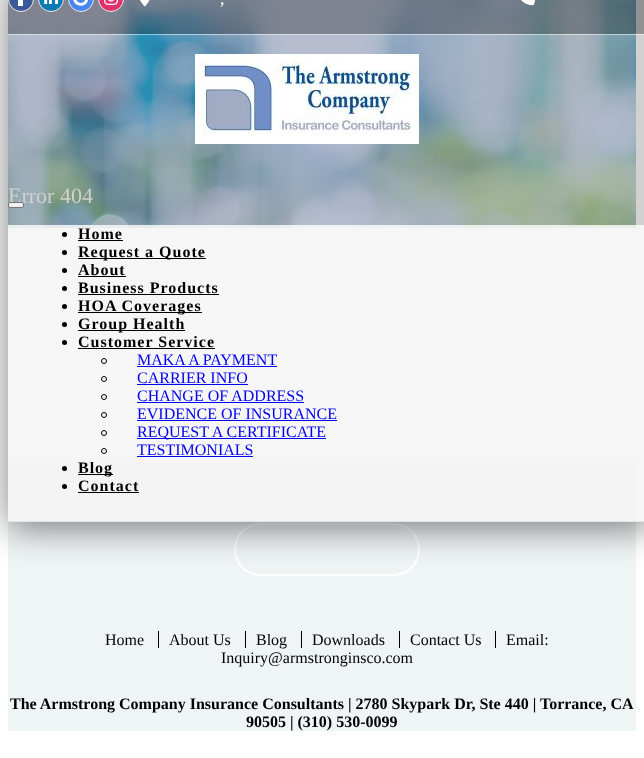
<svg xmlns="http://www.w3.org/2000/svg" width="644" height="758">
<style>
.a{font:22px Liberation Serif;fill:#d1d1d1}
.b{font:18px Liberation Serif;fill:#fff}
.c{font:bold 16px Liberation Serif;letter-spacing:1px;fill:#000}
.d{font:16px Liberation Serif;fill:#00e}
.e{font:16px Liberation Serif;fill:#000}
.f{font:bold 16px Liberation Serif;fill:#000}
</style>
<defs>
<clipPath id="clip1"><path d="M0 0h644v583h-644zm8-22h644v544h-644z" clip-rule="evenodd"/></clipPath>
</defs>
<rect width="100%" height="100%" fill="#fff"/>
<path fill="#d1d1d1" d="M8 0h636v521H8z"/>
<path fill="#e8e8e8" d="M636 521h8v1H636z"/>
<image href="1.png" x="8" y="0" width="628" height="228"/>
<path fill="#1e1ec5" d="M157 383h28v1H157z"/>
<path fill="#eff4f5" d="M8 522h628v209H8z"/>
<path fill="#c5c9ca" d="M8 462h628v59H8z"/>
<path fill="#e2e4e5" d="M8 521h628v1H8z"/>
<rect fill="none" stroke="#fff" stroke-width="2" x="235" y="524" width="184" height="51" rx="25.5"/>
<g clip-path="url(#clip1)">
<path fill="#00000080" filter="blur(18px)" d="M8 -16h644v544H8z"/>
</g>
<path fill="#0000004d" d="M8 0h636v34H8z"/>
<circle fill="#3b5998" stroke="#e9e9e9" cx="21" cy="-1" r="12.5"/>
<path fill="#fff" d="M18 0h5v6H18z"/>
<circle fill="#0c7bb3" stroke="#e9e9e9" cx="51" cy="-1" r="12.5"/>
<image href="2.png" x="44" y="0" width="14" height="4"/>
<circle fill="#4687f4" stroke="#e9e9e9" cx="81" cy="-1" r="12.5"/>
<image href="3.png" x="73" y="0" width="15" height="6"/>
<circle fill="#e1306c" stroke="#e9e9e9" cx="111" cy="-1" r="12.5"/>
<image href="4.png" x="104" y="0" width="14" height="5"/>
<image href="5.png" x="140" y="0" width="10" height="7"/>
<image href="6.png" x="521" y="0" width="14" height="6"/>
<image href="7.png" x="195" y="54" width="224" height="90"/>
<path fill="#ffffff80" d="M8 34h636v1H8z"/>
<path fill="#ffffffcc" d="M8 225h636v296H8z"/>
<circle fill="#000" cx="64.5" cy="234.5" r="2.5"/>
<path fill="#000" d="M78 240h45v1H78z"/>
<circle fill="#000" cx="64.5" cy="252.5" r="2.5"/>
<path fill="#000" d="M78 258h128v1H78z"/>
<circle fill="#000" cx="64.5" cy="270.5" r="2.5"/>
<path fill="#000" d="M78 276h48v1H78z"/>
<circle fill="#000" cx="64.5" cy="288.5" r="2.5"/>
<path fill="#000" d="M78 294h141v1H78z"/>
<circle fill="#000" cx="64.5" cy="306.5" r="2.5"/>
<path fill="#000" d="M78 312h124v1H78z"/>
<circle fill="#000" cx="64.5" cy="324.5" r="2.5"/>
<path fill="#000" d="M78 330h107v1H78z"/>
<circle fill="#000" cx="64.5" cy="342.5" r="2.5"/>
<path fill="#000" d="M78 348h137v1H78z"/>
<circle fill="none" stroke="#000" cx="104" cy="361" r="2.5"/>
<path fill="#00e" d="M137 366h140v1H137z"/>
<circle fill="none" stroke="#000" cx="104" cy="379" r="2.5"/>
<path fill="#00e" d="M137 384h111v1H137z"/>
<circle fill="none" stroke="#000" cx="104" cy="397" r="2.5"/>
<path fill="#00e" d="M137 402h167v1H137z"/>
<circle fill="none" stroke="#000" cx="104" cy="415" r="2.5"/>
<path fill="#00e" d="M137 420h200v1H137z"/>
<circle fill="none" stroke="#000" cx="104" cy="433" r="2.5"/>
<path fill="#00e" d="M137 438h189v1H137z"/>
<circle fill="none" stroke="#000" cx="104" cy="451" r="2.5"/>
<path fill="#00e" d="M137 456h116v1H137z"/>
<circle fill="#000" cx="64.5" cy="468.5" r="2.5"/>
<path fill="#000" d="M78 474h35v1H78z"/>
<circle fill="#000" cx="64.5" cy="486.5" r="2.5"/>
<path fill="#000" d="M78 492h61v1H78z"/>
<path fill="#000" d="M158 631h1v17H158z"/>
<path fill="#000" d="M245 631h1v17H245z"/>
<path fill="#000" d="M301 631h1v17H301z"/>
<path fill="#000" d="M399 631h1v17H399z"/>
<path fill="#000" d="M495 631h1v17H495z"/>
<text class="a" x="8" y="203">Error 404</text>
<text class="b" x="220" y="4">,</text>
<rect fill="#efefef" stroke="#767676" x="8.5" y="202.5" width="15" height="5" rx="1.5"/>
<text class="c" x="78" y="239">Home</text>
<text class="c" x="78" y="257">Request a Quote</text>
<text class="c" x="78" y="275">About</text>
<text class="c" x="78" y="293">Business Products</text>
<text class="c" x="78" y="311">HOA Coverages</text>
<text class="c" x="78" y="329">Group Health</text>
<text class="c" x="78" y="347">Customer Service</text>
<text class="d" x="137" y="365">MAKA A PAYMENT</text>
<text class="d" x="137" y="383">CARRIER INFO</text>
<text class="d" x="137" y="401">CHANGE OF ADDRESS</text>
<text class="d" x="137" y="419">EVIDENCE OF INSURANCE</text>
<text class="d" x="137" y="437">REQUEST A CERTIFICATE</text>
<text class="d" x="137" y="455">TESTIMONIALS</text>
<text class="c" x="78" y="473">Blog</text>
<text class="c" x="78" y="491">Contact</text>
<text class="e" x="105" y="645">Home</text>
<text class="e" x="169" y="645">About Us</text>
<text class="e" x="256" y="645">Blog</text>
<text class="e" x="312" y="645">Downloads</text>
<text class="e" x="410" y="645">Contact Us</text>
<text class="e" x="506" y="645">Email:</text>
<text class="e" x="221" y="663">Inquiry@armstronginsco.com</text>
<text class="f" x="10" y="709">The Armstrong Company Insurance Consultants | 2780 Skypark Dr, Ste 440 | Torrance, CA</text>
<text class="f" x="246" y="727">90505 | (310) 530-0099</text>
</svg>
